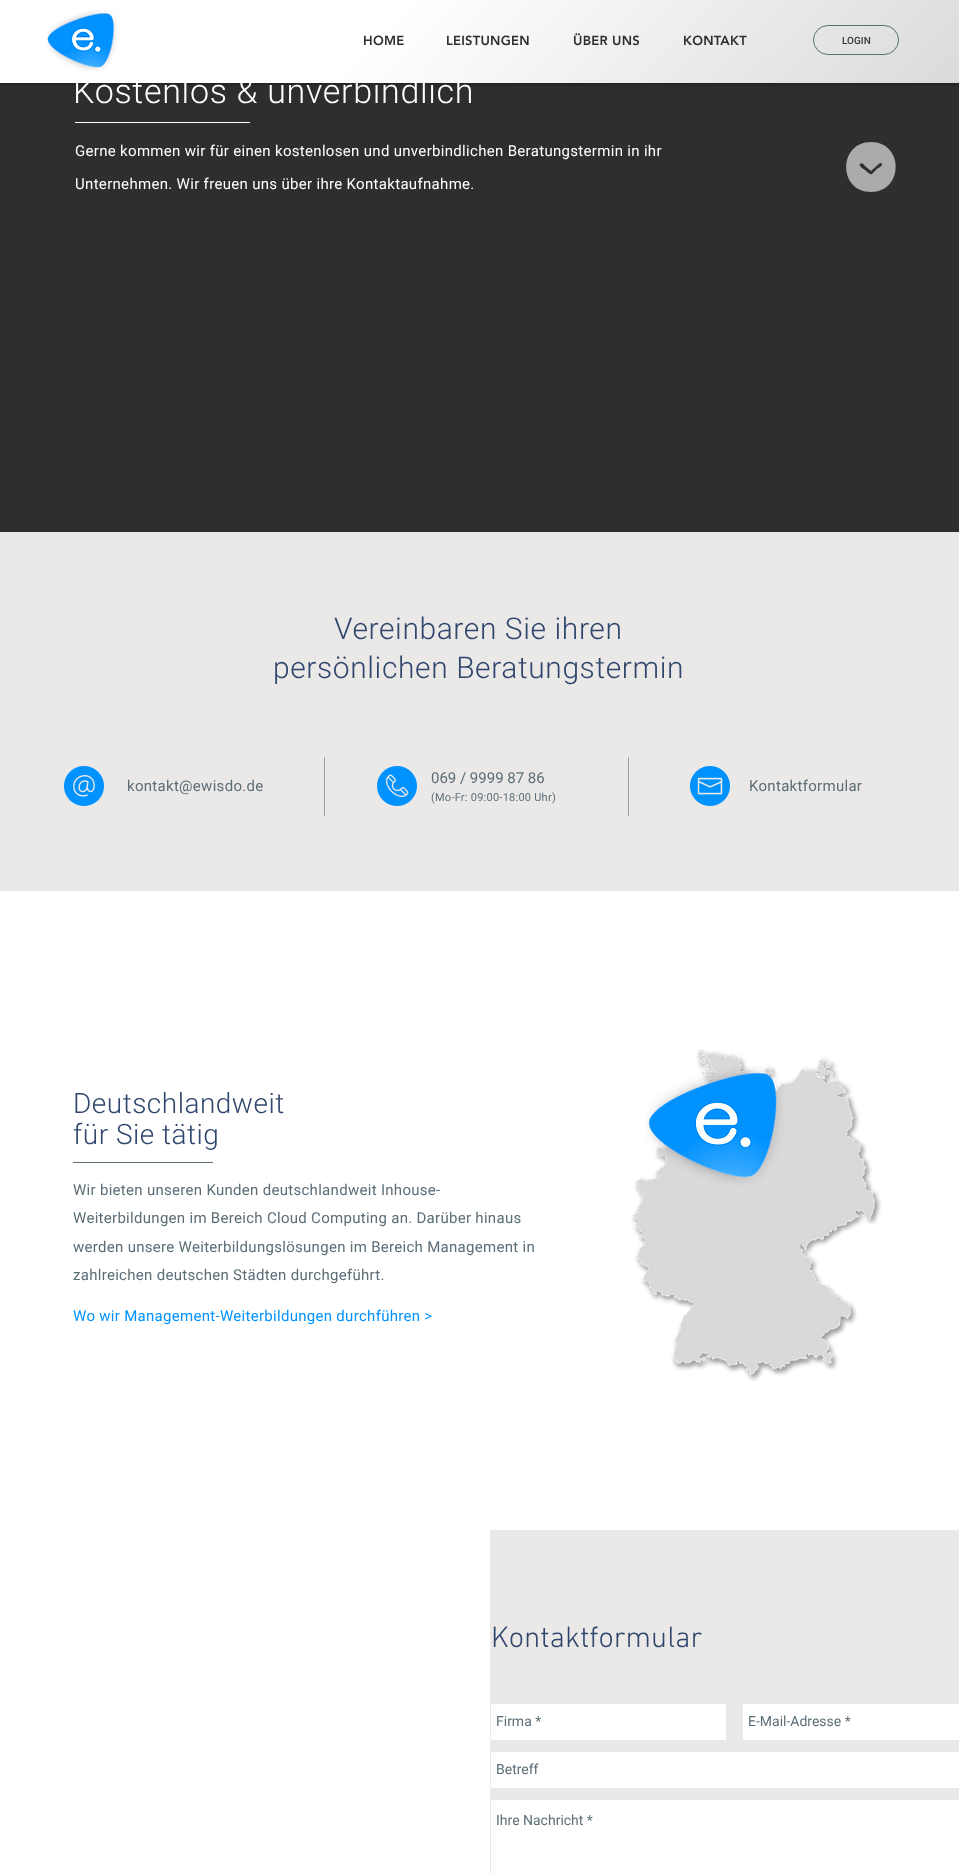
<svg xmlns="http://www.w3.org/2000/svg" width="959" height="1874">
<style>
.a{font:300 34px Roboto;letter-spacing:0.7px;fill:#fff}
.b{font:900 13px 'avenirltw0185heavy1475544';letter-spacing:0.25px;fill:#2f2e2e}
.c{font:500 10px Roboto;fill:#343a40}
.d{font:15px Roboto;letter-spacing:0.32px;fill:#fff}
.e{font:300 30px Roboto;letter-spacing:0.6px;fill:#2f466d}
.f{font:15px Roboto;letter-spacing:0.3px;fill:#5b6e77}
.g{font:15px Roboto;fill:#5b6e77}
.h{font:11px Roboto;letter-spacing:0.25px;fill:#5b6e77}
.i{font:300 28px Roboto;letter-spacing:0.5px;fill:#2f466d}
.j{font:15px Roboto;letter-spacing:0.3px;fill:#0092ff}
.k{font:300 30px 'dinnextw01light';fill:#2f466d}
.l{font:14px Roboto;fill:#5b6e77}
</style>
<defs>
<clipPath id="clip1"><path d="M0 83h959v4H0z"/></clipPath>
<linearGradient id="g1" gradientUnits="userSpaceOnUse" x1="224" y1="-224" x2="756" y2="307"><stop offset="0.39" stop-color="#fff"/><stop offset="1" stop-color="#fff" stop-opacity="0.82"/></linearGradient>
</defs>
<rect width="100%" height="100%" fill="#fff"/>
<path fill="#2f2e2e" d="M0 0h959v532H0z"/>
<g clip-path="url(#clip1)">
<path fill="#00000080" filter="blur(2.5px)" d="M0 0h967v83H0z"/>
</g>
<path fill="#fff" d="M75 122h175v1H75z"/>
<path fill="#acabab" d="M871 192c33 0 33-50 0-50c-33 0-33 50 0 50zm-11-28c2-2 4 1 5 2l6 5l9-8h1c3 2-2 5-3 5c-8 7-5 9-13 2c-1-1-7-4-5-6z"/>
<path fill="#ebe8e8" d="M0 532h959v359H0z"/>
<image href="2.png" x="64" y="766" width="40" height="40"/>
<path fill="#a0a09f" d="M324 757h1v59H324z"/>
<image href="3.png" x="377" y="766" width="40" height="40"/>
<path fill="#a0a09f" d="M628 757h1v59H628z"/>
<image href="4.png" x="690" y="766" width="40" height="40"/>
<image href="5.png" x="631" y="1049" width="251" height="332"/>
<path fill="#5b6e77" d="M73 1162h140v1H73z"/>
<image href="6.png" x="645" y="1066" width="139" height="119"/>
<path fill="#ebe8e8" d="M490 1530h469v344H490z"/>
<path fill="#fff" d="M491 1704h235v36H491z"/>
<path fill="#fff" d="M743 1704h216v36H743z"/>
<path fill="#fff" d="M491 1752h468v36H491z"/>
<path fill="#fff" d="M491 1800h468v74H491z"/>
<text class="a" x="73" y="103">Kostenlos &amp; unverbindlich</text>
<path fill="url(#g1)" d="M0 0h959v83H0z"/>
<text class="b" x="683" y="45">KONTAKT</text>
<text class="b" x="573" y="45">ÜBER UNS</text>
<text class="b" x="446" y="45">LEISTUNGEN</text>
<text class="b" x="363" y="45">HOME</text>
<rect fill="none" stroke="#5b6e77" x="813.5" y="25.5" width="85" height="29" rx="14.5"/>
<text class="c" x="842" y="44">LOGIN</text>
<image href="1.png" x="45" y="10" width="73" height="61"/>
<text class="d" x="75" y="156">Gerne kommen wir für einen kostenlosen und unverbindlichen Beratungstermin in ihr</text>
<text class="d" x="75" y="189">Unternehmen. Wir freuen uns über ihre Kontaktaufnahme.</text>
<text class="e" x="334" y="639">Vereinbaren Sie ihren</text>
<text class="e" x="273" y="678">persönlichen Beratungstermin</text>
<text class="f" x="127" y="791">kontakt@ewisdo.de</text>
<text class="g" x="431" y="783">069 / 9999 87 86</text>
<text class="h" x="431" y="801">(Mo-Fr: 09:00-18:00 Uhr)</text>
<text class="f" x="749" y="791">Kontaktformular</text>
<text class="i" x="73" y="1113">Deutschlandweit</text>
<text class="i" x="73" y="1144">für Sie tätig</text>
<text class="f" x="73" y="1195">Wir bieten unseren Kunden deutschlandweit Inhouse-</text>
<text class="f" x="73" y="1223">Weiterbildungen im Bereich Cloud Computing an. Darüber hinaus</text>
<text class="f" x="73" y="1252">werden unsere Weiterbildungslösungen im Bereich Management in</text>
<text class="f" x="73" y="1280">zahlreichen deutschen Städten durchgeführt.</text>
<text class="j" x="73" y="1321">Wo wir Management-Weiterbildungen durchführen &gt;</text>
<text class="k" x="491" y="1647">Kontaktformular</text>
<text class="l" x="496" y="1726">Firma *</text>
<text class="l" x="748" y="1726">E-Mail-Adresse *</text>
<text class="l" x="496" y="1774">Betreff</text>
<text class="l" x="496" y="1825">Ihre Nachricht *</text>
</svg>
